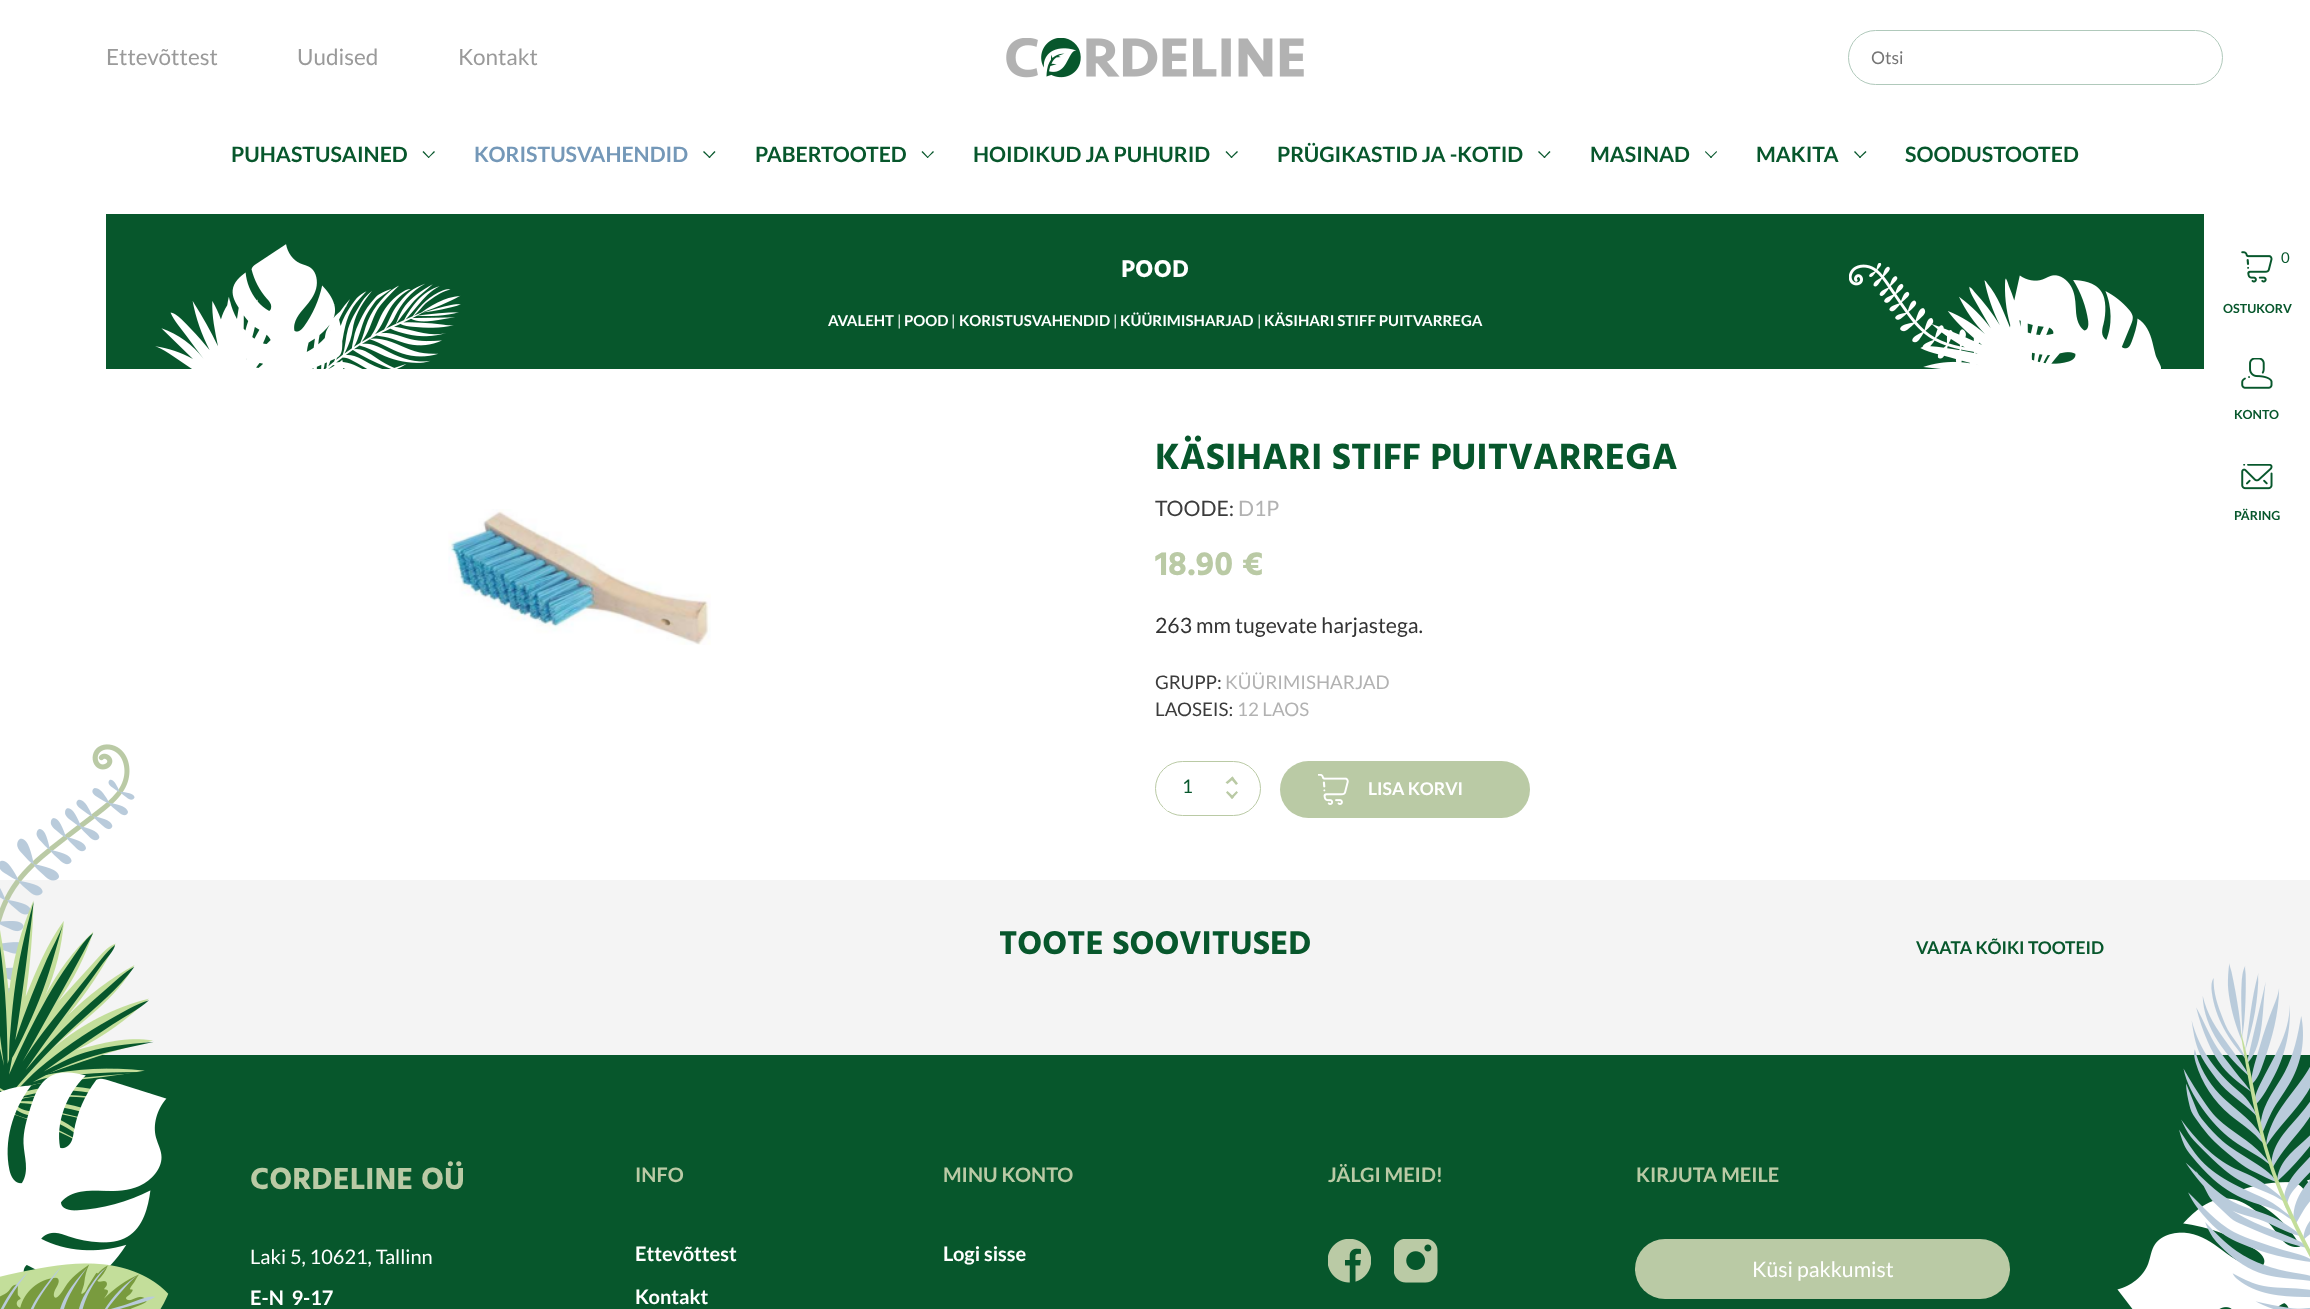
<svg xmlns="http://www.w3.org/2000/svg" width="2310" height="1309">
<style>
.a{font:22.5px Lato;fill:#9a9a9a}
.b{font:17.5px Lato;fill:#757575}
.c{font:bold 21.25px Lato;fill:#07572c}
.d{font:bold 21.25px Lato;fill:#7498b8}
.e{font:15px Lato;fill:#07572c}
.f{font:bold 12.5px Lato;fill:#07572c}
.g{font:bold 25px Hind;fill:#fff}
.h{font:bold 15px Lato;fill:#fff}
.i{font:15px Lato;fill:#fff}
.j{font:bold 37.5px Hind;fill:#07572c}
.k{font:21.25px Lato;fill:#3c3c3c}
.l{font:21.25px Lato;fill:#b2b2b2}
.m{font:bold 34.5px Hind;fill:#bacaa5}
.n{font:21.25px Lato;fill:#333}
.o{font:18.75px Lato;fill:#3c3c3c}
.p{font:18.75px Lato;fill:#b2b2b2}
.q{font:18.75px Lato;fill:#07572c}
.r{font:bold 17.5px Lato;fill:#fff}
.s{font:bold 33.75px Hind;fill:#07572c}
.t{font:bold 17.5px Lato;fill:#07572c}
.u{font:bold 31.25px Hind;fill:#bacaa5}
.v{font:20px Lato;fill:#fff}
.w{font:bold 20px Lato;fill:#fff}
.x{font:bold 20px Lato;fill:#bacaa5}
.y{font:21.25px Lato;fill:#fff}
</style>
<defs>
<clipPath id="clip1"><rect x="1156" y="763" width="104" height="52" rx="26"/></clipPath>
</defs>
<rect width="100%" height="100%" fill="#fff"/>
<image href="1.png" x="1006" y="38" width="298" height="40"/>
<rect fill="none" stroke="#b0c9bb" x="1848.5" y="30.5" width="374" height="54" rx="27"/>
<path fill="#07572c" d="M434 151l1 1l-6.5 6l-.5-.5z"/>
<path fill="#07572c" d="M423.5 151l6 6.5l-1 .5l-6-6z"/>
<path fill="#07572c" d="M714.5 151l1 1l-6 6l-1-.5z"/>
<path fill="#07572c" d="M704 151l6.5 6.5l-1 .5l-6.5-6z"/>
<path fill="#07572c" d="M933 151l1 1l-6.5 6l-.5-.5z"/>
<path fill="#07572c" d="M922.5 151l6 6.5l-1 .5l-6-6z"/>
<path fill="#07572c" d="M1237 151l1 1l-6.5 6l-1-.5z"/>
<path fill="#07572c" d="M1226.5 151l6 6.5l-1 .5l-6-6z"/>
<path fill="#07572c" d="M1549.5 151l1 1l-6 6l-1-.5z"/>
<path fill="#07572c" d="M1539 151l6.5 6.5l-1 .5l-6.5-6z"/>
<path fill="#07572c" d="M1716.5 151l.5 1l-6 6l-1-.5z"/>
<path fill="#07572c" d="M1705.5 151l6.5 6.5l-1 .5l-6-6z"/>
<path fill="#07572c" d="M1865.5 151l1 1l-6.5 6l-1-.5z"/>
<path fill="#07572c" d="M1855 151l6 6.5l-1 .5l-6-6z"/>
<image href="2.png" x="2241" y="251" width="32" height="32"/>
<image href="3.png" x="2241" y="358" width="32" height="31"/>
<image href="4.png" x="2241" y="464" width="32" height="26"/>
<path fill="#07572c" d="M106 214h2098v155H106z"/>
<image href="5.png" x="155" y="244" width="306" height="125"/>
<image href="6.png" x="1849" y="263" width="312" height="106"/>
<image href="7.png" x="448" y="509" width="263" height="136"/>
<rect fill="none" stroke="#bacaa5" x="1155.5" y="761.5" width="105" height="54" rx="27"/>
<g clip-path="url(#clip1)">
<path fill="#fff" d="M1163 763h50v48H1163z"/>
</g>
<path fill="#bacaa5" d="M1227.5 784l-2-1.5l7-6l1.5 2z"/>
<path fill="#bacaa5" d="M1236 785l-5.5-6.5l2-2l5.5 7zm.5 6l1.5 1.5l-6 6.5l-1.5-2z"/>
<path fill="#bacaa5" d="M1227.5 791l6.5 6l-2 2l-6-6.5z"/>
<rect fill="#bacaa5" x="1280" y="761" width="250" height="57" rx="28.5"/>
<image href="8.png" x="1318" y="774" width="31" height="31"/>
<path fill="#f4f4f4" d="M0 880h2310v175H0z"/>
<path fill="#07572c" d="M7 1055h2303v254H7z"/>
<image href="9.png" x="0" y="744" width="135" height="250"/>
<image href="10.png" x="0" y="900" width="154" height="245"/>
<image href="11.png" x="0" y="1072" width="167" height="205"/>
<image href="12.png" x="0" y="1263" width="169" height="46"/>
<image href="14.png" x="2117" y="1179" width="193" height="130"/>
<image href="13.png" x="2179" y="963" width="131" height="346"/>
<image href="15.png" x="1328" y="1239" width="43" height="44"/>
<image href="16.png" x="1394" y="1239" width="44" height="44"/>
<rect fill="#bacaa5" x="1635" y="1239" width="375" height="60" rx="30"/>
<text class="a" x="106" y="65">Ettevõttest</text>
<text class="a" x="297" y="65">Uudised</text>
<text class="a" x="458" y="65">Kontakt</text>
<text class="b" x="1871" y="64">Otsi</text>
<text class="c" x="231" y="162">PUHASTUSAINED</text>
<text class="d" x="474" y="162">KORISTUSVAHENDID</text>
<text class="c" x="755" y="162">PABERTOOTED</text>
<text class="c" x="973" y="162">HOIDIKUD JA PUHURID</text>
<text class="c" x="1277" y="162">PRÜGIKASTID JA -KOTID</text>
<text class="c" x="1590" y="162">MASINAD</text>
<text class="c" x="1756" y="162">MAKITA</text>
<text class="c" x="1905" y="162">SOODUSTOOTED</text>
<text class="e" x="2281" y="263">0</text>
<text class="f" x="2223" y="313">OSTUKORV</text>
<text class="f" x="2234" y="419">KONTO</text>
<text class="f" x="2234" y="520">PÄRING</text>
<text class="g" x="1121" y="277">POOD</text>
<text class="h" x="828" y="326">AVALEHT</text>
<text class="i" x="897" y="326">|</text>
<text class="h" x="904" y="326">POOD</text>
<text class="i" x="951" y="326">|</text>
<text class="h" x="959" y="326">KORISTUSVAHENDID</text>
<text class="i" x="1113" y="326">|</text>
<text class="h" x="1120" y="326">KÜÜRIMISHARJAD</text>
<text class="i" x="1257" y="326">|</text>
<text class="h" x="1264" y="326">KÄSIHARI STIFF PUITVARREGA</text>
<text class="j" x="1155" y="469">KÄSIHARI STIFF PUITVARREGA</text>
<text class="k" x="1155" y="516">TOODE:</text>
<text class="l" x="1238" y="516">D1P</text>
<text class="m" x="1155" y="575">18.90 €</text>
<text class="n" x="1155" y="633">263 mm tugevate harjastega.</text>
<text class="o" x="1155" y="689">GRUPP:</text>
<text class="p" x="1225" y="689">KÜÜRIMISHARJAD</text>
<text class="o" x="1155" y="716">LAOSEIS:</text>
<text class="p" x="1237" y="716">12 LAOS</text>
<text class="q" x="1182" y="793">1</text>
<text class="r" x="1368" y="795">LISA KORVI</text>
<text class="s" x="999" y="954">TOOTE SOOVITUSED</text>
<text class="t" x="1916" y="954">VAATA KÕIKI TOOTEID</text>
<text class="u" x="250" y="1189">CORDELINE OÜ</text>
<text class="v" x="250" y="1264">Laki 5, 10621, Tallinn</text>
<text class="w" xml:space="preserve" x="250" y="1305">E-N  9-17</text>
<text class="x" x="635" y="1182">INFO</text>
<text class="w" x="635" y="1261">Ettevõttest</text>
<text class="w" x="635" y="1304">Kontakt</text>
<text class="x" x="943" y="1182">MINU KONTO</text>
<text class="w" x="943" y="1261">Logi sisse</text>
<text class="x" x="1328" y="1182">JÄLGI MEID!</text>
<text class="x" x="1636" y="1182">KIRJUTA MEILE</text>
<text class="y" x="1752" y="1277">Küsi pakkumist</text>
</svg>
